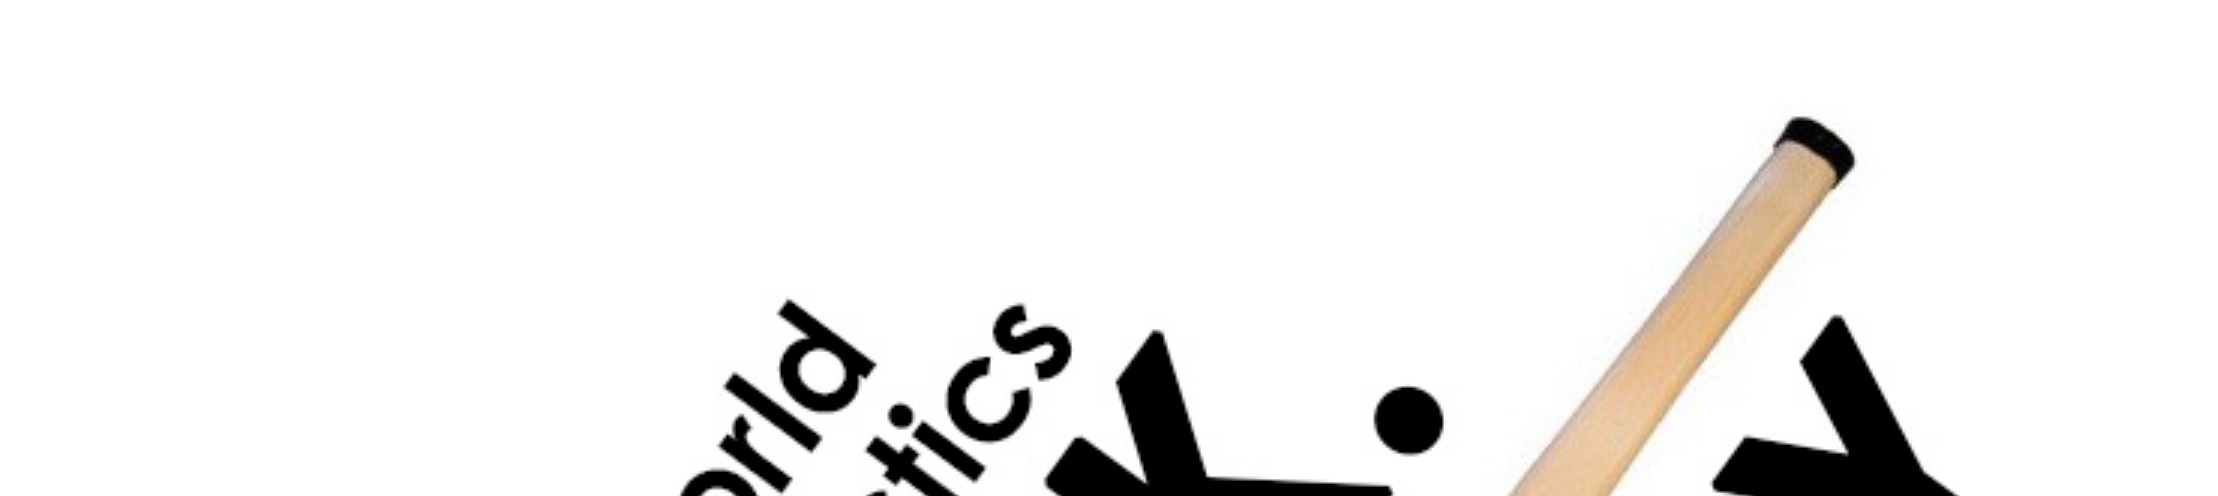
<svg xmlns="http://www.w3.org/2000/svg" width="2218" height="496">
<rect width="100%" height="100%" fill="#fff"/>
<image href="1.png" x="677" y="103" width="1284" height="393"/>
</svg>
